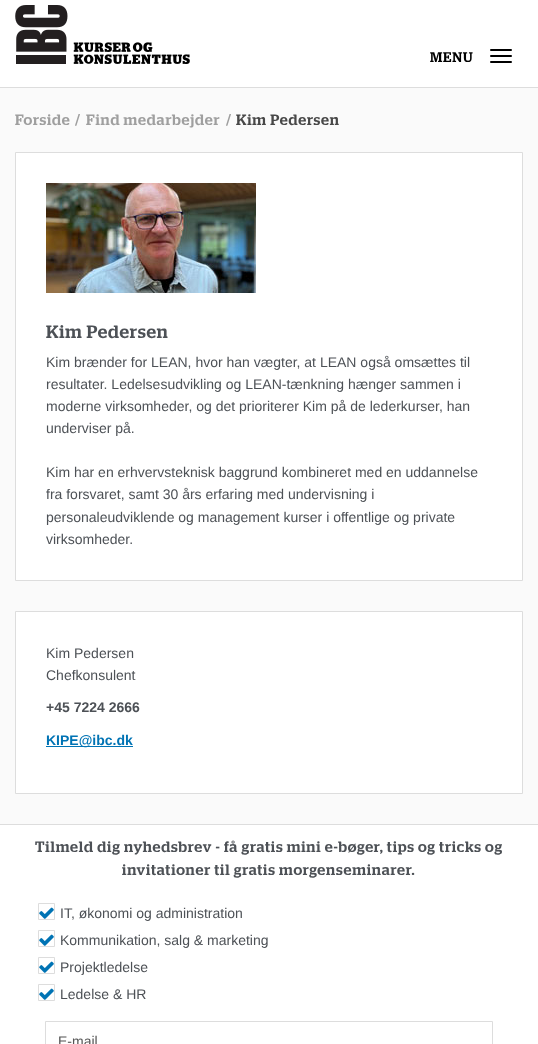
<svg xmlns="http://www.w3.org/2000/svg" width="538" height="1044">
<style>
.a{font:14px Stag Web;letter-spacing:0.8px;fill:#000}
.b{font:15px Stag Web;letter-spacing:0.8px;fill:#9f9f9f}
.c{font:15px Stag Web;letter-spacing:0.8px;fill:#484848}
.d{font:18px Stag Web;letter-spacing:0.8px;fill:#4d5156}
.e{font:14px Liberation Sans;fill:#4d5156}
.f{font:bold 14px Liberation Sans;fill:#4d5156}
.g{font:bold 14px Liberation Sans;fill:#0073b4}
.h{font:15px Stag Web;letter-spacing:0.8px;fill:#4d5156}
.i{font:14px Liberation Sans;fill:#555}
</style>
<rect width="100%" height="100%" fill="#fafafa"/>
<path fill="#fff" d="M0 0h538v87H0z"/>
<path fill="#ddd" d="M0 87h538v1H0z"/>
<image href="1.png" x="15" y="5" width="175" height="59"/>
<rect fill="#000" x="490" y="49" width="22" height="2" rx="1"/>
<rect fill="#000" x="490" y="55" width="22" height="2" rx="1"/>
<rect fill="#000" x="490" y="61" width="22" height="2" rx="1"/>
<path fill="#fff" stroke="#ddd" d="M15.5 152.5h507v428H15.5z"/>
<image href="2.png" x="46" y="183" width="210" height="110"/>
<path fill="#fff" stroke="#ddd" d="M15.5 611.5h507v182H15.5z"/>
<path fill="#0073b4" d="M46 746h87v1H46z"/>
<path fill="#fff" d="M0 825h538v219H0z"/>
<path fill="#ddd" d="M0 824h538v1H0z"/>
<path fill="none" stroke="#ddd" d="M38.5 903.5h16v16H38.5z"/>
<image href="3.png" x="39" y="907" width="15" height="12"/>
<path fill="none" stroke="#ddd" d="M38.5 930.5h16v16H38.5z"/>
<image href="3.png" x="39" y="934" width="15" height="12"/>
<path fill="none" stroke="#ddd" d="M38.5 957.5h16v16H38.5z"/>
<image href="3.png" x="39" y="961" width="15" height="12"/>
<path fill="none" stroke="#ddd" d="M38.5 984.5h16v16H38.5z"/>
<image href="3.png" x="39" y="988" width="15" height="12"/>
<path fill="none" stroke="#ddd" d="M45.5 1021.5h447v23H45.5z"/>
<text class="a" x="430" y="62">MENU</text>
<text class="b" x="15" y="125">Forside</text>
<text class="b" x="75" y="125">/</text>
<text class="b" x="86" y="125">Find medarbejder</text>
<text class="b" x="226" y="125">/</text>
<text class="c" x="236" y="125">Kim Pedersen</text>
<text class="d" x="46" y="338">Kim Pedersen</text>
<text class="e" x="46" y="367">Kim brænder for LEAN, hvor han vægter, at LEAN også omsættes til</text>
<text class="e" x="46" y="389">resultater. Ledelsesudvikling og LEAN-tænkning hænger sammen i</text>
<text class="e" x="46" y="411">moderne virksomheder, og det prioriterer Kim på de lederkurser, han</text>
<text class="e" x="46" y="433">underviser på.</text>
<text class="e" x="46" y="477">Kim har en erhvervsteknisk baggrund kombineret med en uddannelse</text>
<text class="e" x="46" y="499">fra forsvaret, samt 30 års erfaring med undervisning i</text>
<text class="e" x="46" y="522">personaleudviklende og management kurser i offentlige og private</text>
<text class="e" x="46" y="544">virksomheder.</text>
<text class="e" x="46" y="658">Kim Pedersen</text>
<text class="e" x="46" y="680">Chefkonsulent</text>
<text class="f" x="46" y="712">+45 7224 2666</text>
<text class="g" x="46" y="745">KIPE@ibc.dk</text>
<text class="h" x="35" y="852">Tilmeld dig nyhedsbrev - få gratis mini e-bøger, tips og tricks og</text>
<text class="h" x="122" y="875">invitationer til gratis morgenseminarer.</text>
<text class="e" x="60" y="918">IT, økonomi og administration</text>
<text class="e" x="60" y="945">Kommunikation, salg &amp; marketing</text>
<text class="e" x="60" y="972">Projektledelse</text>
<text class="e" x="60" y="999">Ledelse &amp; HR</text>
<text class="i" x="58" y="1046">E-mail</text>
</svg>
